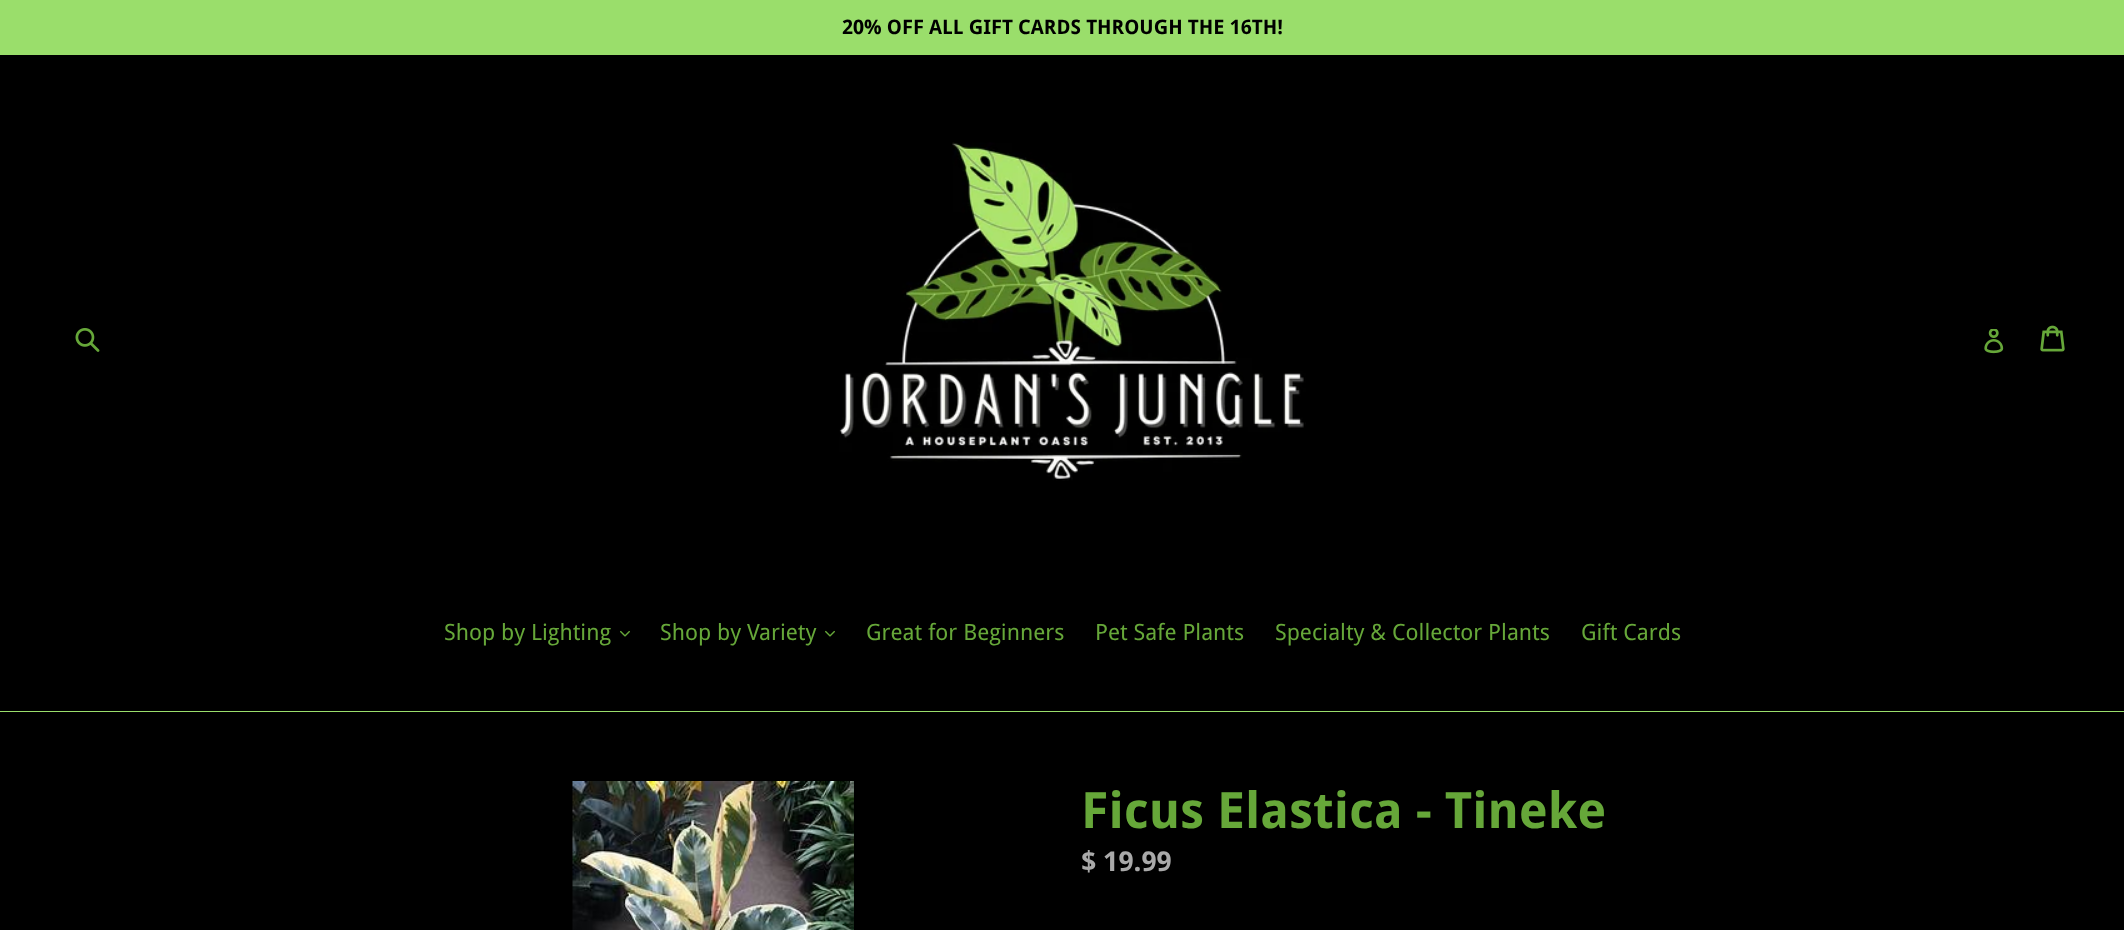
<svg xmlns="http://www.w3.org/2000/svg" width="2124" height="930">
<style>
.a{font:bold 20px Droid Sans;fill:#000}
.b{font:22.5px Droid Sans;fill:#66a739}
.c{font:bold 50px Droid Sans;fill:#66a739}
.d{font:bold 27.5px Droid Sans;fill:#a9a9a9}
</style>
<rect width="100%" height="100%" fill="#000"/>
<path fill="#9ade6b" d="M0 0h2124v55H0z"/>
<image href="1.png" x="75" y="328" width="25" height="24"/>
<image href="2.png" x="839" y="142" width="467" height="339"/>
<image href="3.png" x="1984" y="329" width="20" height="25"/>
<image href="4.png" x="2040" y="325" width="25" height="27"/>
<path fill="#9ade6b" d="M0 711h2124v1H0z"/>
<image href="5.png" x="620" y="630" width="10" height="7"/>
<image href="5.png" x="825" y="630" width="10" height="7"/>
<image href="6.png" x="572" y="781" width="282" height="149"/>
<text class="a" x="842" y="34">20% OFF ALL GIFT CARDS THROUGH THE 16TH!</text>
<text class="b" x="444" y="640">Shop by Lighting</text>
<text class="b" x="660" y="640">Shop by Variety</text>
<text class="b" x="866" y="640">Great for Beginners</text>
<text class="b" x="1095" y="640">Pet Safe Plants</text>
<text class="b" x="1275" y="640">Specialty &amp; Collector Plants</text>
<text class="b" x="1581" y="640">Gift Cards</text>
<text class="c" x="1081" y="828">Ficus Elastica - Tineke</text>
<text class="d" x="1081" y="871">$ 19.99</text>
</svg>
